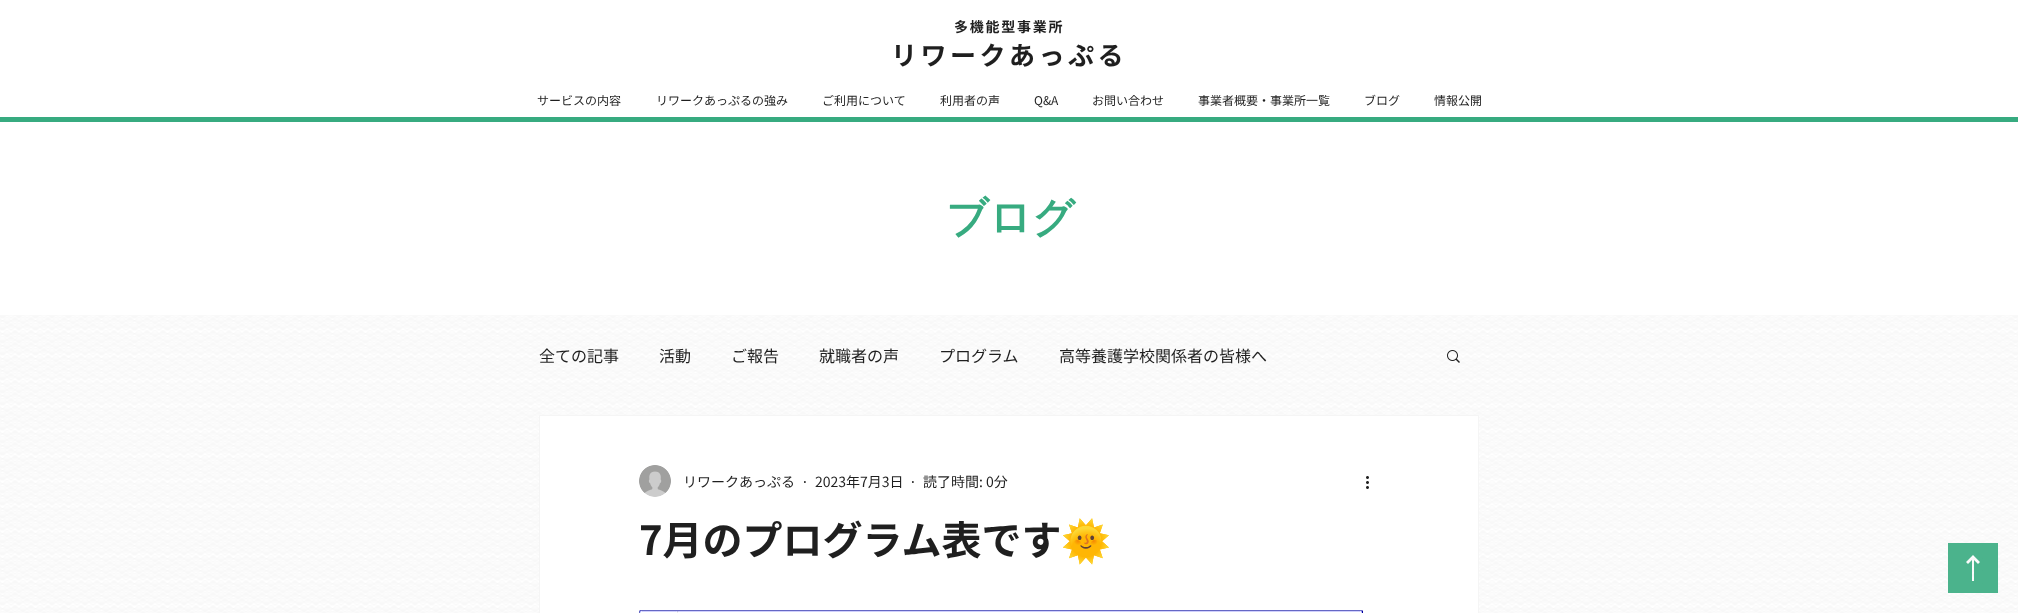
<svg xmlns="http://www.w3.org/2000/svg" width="2018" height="613">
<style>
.a{font:bold 14px Noto Sans JP;letter-spacing:1.75px;fill:#1f1f1f}
.b{font:bold 26px Noto Sans JP;letter-spacing:3.5px;fill:#1f1f1f}
.c{font:12px Noto Sans JP;fill:#1f1f1f}
.d{font:bold 42px WenQuanYi Zen Hei;fill:#37ab80}
.e{font:16px Noto Sans JP;fill:#1f1f1f}
.f{font:14px Noto Sans JP;fill:#1f1f1f}
.g{font:bold 40px Noto Sans JP;fill:#1f1f1f}
.h{font:40px Noto Color Emoji;fill:#1f1f1f}
</style>
<rect width="100%" height="100%" fill="#fff"/>
<path fill="#37ab80" d="M0 117h2018v5H0z"/>
<image href="5.png" x="0" y="315" width="2018" height="298"/>
<image href="1.png" x="1447" y="350" width="13" height="13"/>
<path fill="#fff" stroke="#f5f5f5" d="M539.5 415.5h939v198H539.5z"/>
<image href="2.png" x="639" y="465" width="32" height="32"/>
<image href="3.png" x="1366" y="476" width="3" height="13"/>
<image href="4.png" x="639" y="610" width="724" height="3"/>
<path fill="#37ab80e6" d="M1948 543v50h50v-50zm30 21l-4-4v21h-2v-21l-4 4l-2-2l7-7l7 7z"/>
<text class="a" x="954" y="32">多機能型事業所</text>
<text class="b" x="891" y="65">リワークあっぷる</text>
<text class="c" x="537" y="105">サービスの内容</text>
<text class="c" x="656" y="105">リワークあっぷるの強み</text>
<text class="c" x="822" y="105">ご利用について</text>
<text class="c" x="940" y="105">利用者の声</text>
<text class="c" x="1034" y="105">Q&amp;A</text>
<text class="c" x="1092" y="105">お問い合わせ</text>
<text class="c" x="1198" y="105">事業者概要・事業所一覧</text>
<text class="c" x="1364" y="105">ブログ</text>
<text class="c" x="1434" y="105">情報公開</text>
<text class="d" x="946" y="232">ブログ</text>
<text class="e" x="539" y="362">全ての記事</text>
<text class="e" x="659" y="362">活動</text>
<text class="e" x="731" y="362">ご報告</text>
<text class="e" x="819" y="362">就職者の声</text>
<text class="e" x="939" y="362">プログラム</text>
<text class="e" x="1059" y="362">高等養護学校関係者の皆様へ</text>
<text class="f" x="683" y="487">リワークあっぷる</text>
<text class="f" x="801" y="487">·</text>
<text class="f" x="815" y="487">2023年7月3日</text>
<text class="f" x="909" y="487">·</text>
<text class="f" x="923" y="487">読了時間: 0分</text>
<text class="g" x="639" y="555">7月のプログラム表です</text>
<text class="h" x="1061" y="555">🌞</text>
</svg>
